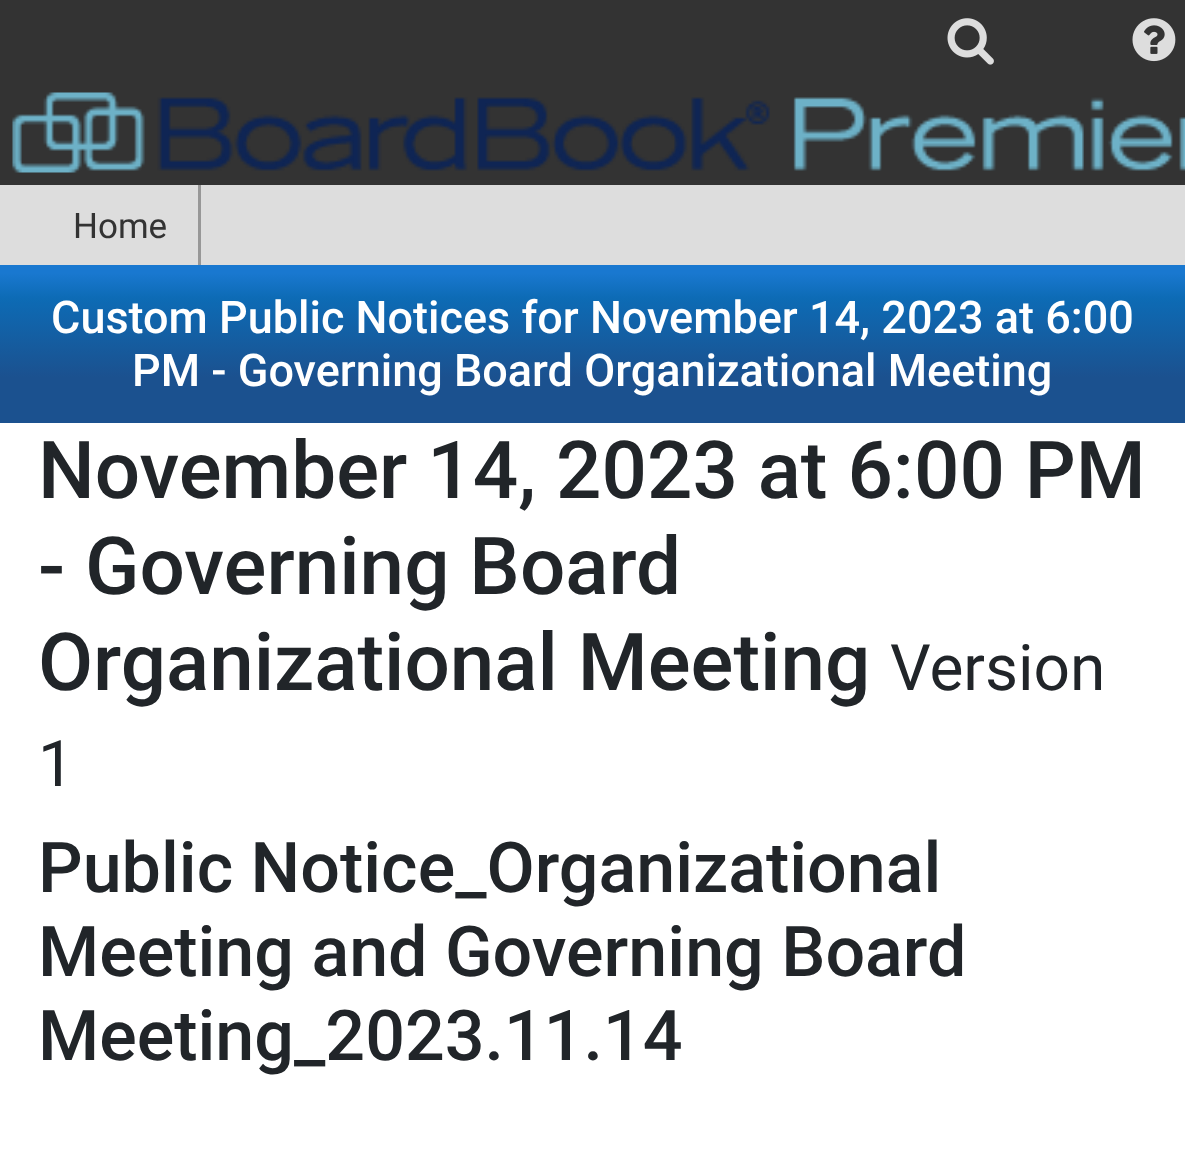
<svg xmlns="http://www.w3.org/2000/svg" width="1185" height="1167">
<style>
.a{font:35px Roboto;fill:#333}
.b{font:500 45px Roboto;fill:#fff}
.c{font:500 80px Roboto;fill:#212529}
.d{font:64px Roboto;fill:#212529}
.e{font:500 70px Roboto;fill:#212529}
</style>
<defs>
<linearGradient id="g1" gradientUnits="userSpaceOnUse" x1="593" y1="423" x2="593" y2="265"><stop offset="0.29" stop-color="#1b518f"/><stop offset="0.79" stop-color="#0d6bb5"/><stop offset="0.95" stop-color="#1978d0"/></linearGradient>
</defs>
<rect width="100%" height="100%" fill="#fff"/>
<path fill="#333" d="M0 0h1185v185H0z"/>
<image href="1.png" x="947" y="18" width="47" height="47"/>
<image href="2.png" x="1132" y="18" width="44" height="44"/>
<image href="3.png" x="12" y="92" width="1173" height="81"/>
<path fill="#ddd" d="M0 185h1185v80H0z"/>
<path fill="#979797" d="M198 185h3v80H198z"/>
<path fill="url(#g1)" d="M0 265h1185v158H0z"/>
<text class="a" x="73" y="238">Home</text>
<text class="b" x="51" y="333">Custom Public Notices for November 14, 2023 at 6:00</text>
<text class="b" x="132" y="386">PM - Governing Board Organizational Meeting</text>
<text class="c" x="38" y="498">November 14, 2023 at 6:00 PM</text>
<text class="c" x="38" y="594">- Governing Board</text>
<text class="c" x="38" y="690">Organizational Meeting</text>
<text class="d" x="890" y="690">Version</text>
<text class="d" x="38" y="786">1</text>
<text class="e" x="38" y="892">Public Notice_Organizational</text>
<text class="e" x="38" y="976">Meeting and Governing Board</text>
<text class="e" x="38" y="1060">Meeting_2023.11.14</text>
</svg>
